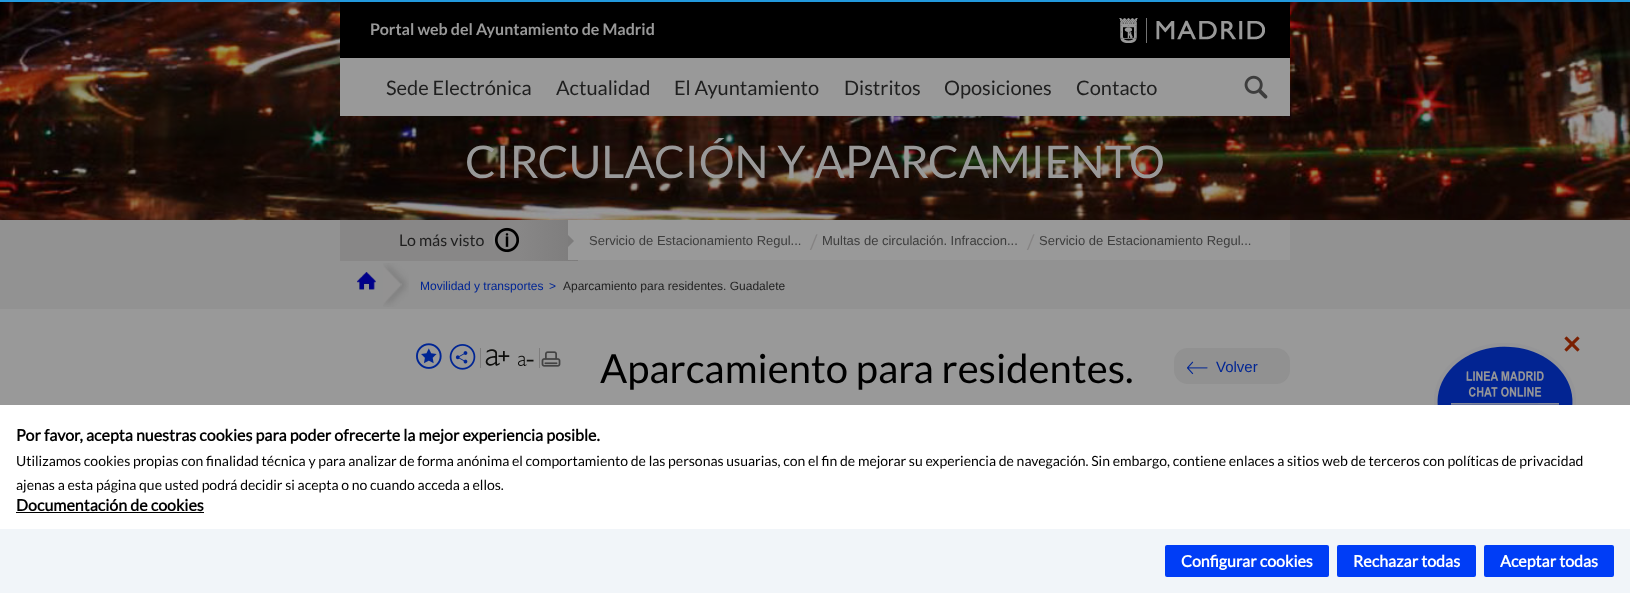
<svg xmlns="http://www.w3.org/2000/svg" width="1630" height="593">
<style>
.a{font:bold 16px Lato;fill:#999}
.b{font:20px Lato;fill:#1f1f1f}
.c{font:45px Lato;fill:#999}
.d{font:16px Lato;fill:#1f1f1f}
.e{font:13px Liberation Sans;fill:#3d3d3d}
.f{font:20px Lato;fill:#858383}
.g{font:12px Liberation Sans;fill:#002594}
.h{font:12px Liberation Sans;fill:#1f1f1f}
.i{font:40px Lato;fill:#000}
.j{font:15px Liberation Sans;fill:#002594}
.k{font:bold 16px 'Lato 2';fill:#000}
.l{font:14px Lato;fill:#000}
.m{font:bold 16px 'Lato 2';fill:#fff}
</style>
<defs>
<linearGradient id="g1" gradientUnits="userSpaceOnUse" x1="340" y1="241" x2="578" y2="241"><stop offset="0" stop-color="#888787"/><stop offset="0.75" stop-color="#888787"/><stop offset="1" stop-color="#7d7c7c"/></linearGradient>
</defs>
<rect width="100%" height="100%" fill="#999"/>
<path fill="#29d" d="M0 0h1630v2H0z"/>
<image href="1.png" x="0" y="2" width="1630" height="218"/>
<path fill="#000" d="M340 2h950v56H340z"/>
<image href="2.png" x="1119" y="18" width="146" height="25"/>
<path fill="#999" d="M340 58h950v58H340z"/>
<image href="3.png" x="1244" y="75" width="24" height="24"/>
<path fill="#929292" d="M0 220h1630v89H0z"/>
<path fill="url(#g1)" d="M340 220h238v41H340z"/>
<image href="4.png" x="493" y="227" width="26" height="26"/>
<path fill="#999" d="M568 220h722v40H568z"/>
<path fill="#7d7c7c" d="M568 247v-12l6 6z"/>
<image href="5.png" x="357" y="272" width="19" height="18"/>
<image href="6.png" x="383" y="263" width="26" height="44"/>
<image href="7.png" x="416" y="343" width="26" height="26"/>
<image href="8.png" x="449" y="344" width="27" height="26"/>
<path fill="#7e7d7d" d="M480 348h1v20H480z"/>
<image href="9.png" x="485" y="349" width="25" height="17"/>
<image href="10.png" x="518" y="355" width="16" height="11"/>
<path fill="#7e7d7d" d="M539 348h1v20H539z"/>
<image href="11.png" x="541" y="351" width="20" height="16"/>
<rect fill="#919191" x="1174" y="348" width="116" height="36" rx="14"/>
<image href="12.png" x="1187" y="361" width="21" height="14"/>
<image href="14.png" x="1434" y="343" width="142" height="62"/>
<image href="13.png" x="1564" y="336" width="16" height="16"/>
<path fill="#fff" d="M0 405h1630v124H0z"/>
<path fill="#000" d="M16 512h188v1H16z"/>
<path fill="#f1f5f9" d="M0 529h1630v64H0z"/>
<rect fill="#003df6" x="1165" y="545" width="164" height="32" rx="2"/>
<rect fill="#003df6" x="1337" y="545" width="139" height="32" rx="2"/>
<rect fill="#003df6" x="1484" y="545" width="130" height="32" rx="2"/>
<text class="a" x="370" y="35">Portal web del Ayuntamiento de Madrid</text>
<text class="b" x="386" y="95">Sede Electrónica</text>
<text class="b" x="556" y="95">Actualidad</text>
<text class="b" x="674" y="95">El Ayuntamiento</text>
<text class="b" x="844" y="95">Distritos</text>
<text class="b" x="944" y="95">Oposiciones</text>
<text class="b" x="1076" y="95">Contacto</text>
<text class="c" x="465" y="178">CIRCULACIÓN Y APARCAMIENTO</text>
<text class="d" x="399" y="246">Lo más visto</text>
<text class="e" x="589" y="245">Servicio de Estacionamiento Regul...</text>
<text class="f" x="810" y="249">/</text>
<text class="e" x="822" y="245">Multas de circulación. Infraccion...</text>
<text class="f" x="1027" y="249">/</text>
<text class="e" x="1039" y="245">Servicio de Estacionamiento Regul...</text>
<text class="g" x="420" y="290">Movilidad y transportes</text>
<text class="g" x="549" y="290">&gt;</text>
<text class="h" x="563" y="290">Aparcamiento para residentes. Guadalete</text>
<text class="i" x="600" y="383">Aparcamiento para residentes.</text>
<text class="j" x="1216" y="372">Volver</text>
<text class="k" x="16" y="441">Por favor, acepta nuestras cookies para poder ofrecerte la mejor experiencia posible.</text>
<text class="l" x="16" y="466">Utilizamos cookies propias con finalidad técnica y para analizar de forma anónima el comportamiento de las personas usuarias, con el fin de mejorar su experiencia de navegación. Sin embargo, contiene enlaces a sitios web de terceros con políticas de privacidad</text>
<text class="l" x="16" y="490">ajenas a esta página que usted podrá decidir si acepta o no cuando acceda a ellos.</text>
<text class="k" x="16" y="511">Documentación de cookies</text>
<text class="m" x="1181" y="567">Configurar cookies</text>
<text class="m" x="1353" y="567">Rechazar todas</text>
<text class="m" x="1500" y="567">Aceptar todas</text>
</svg>
